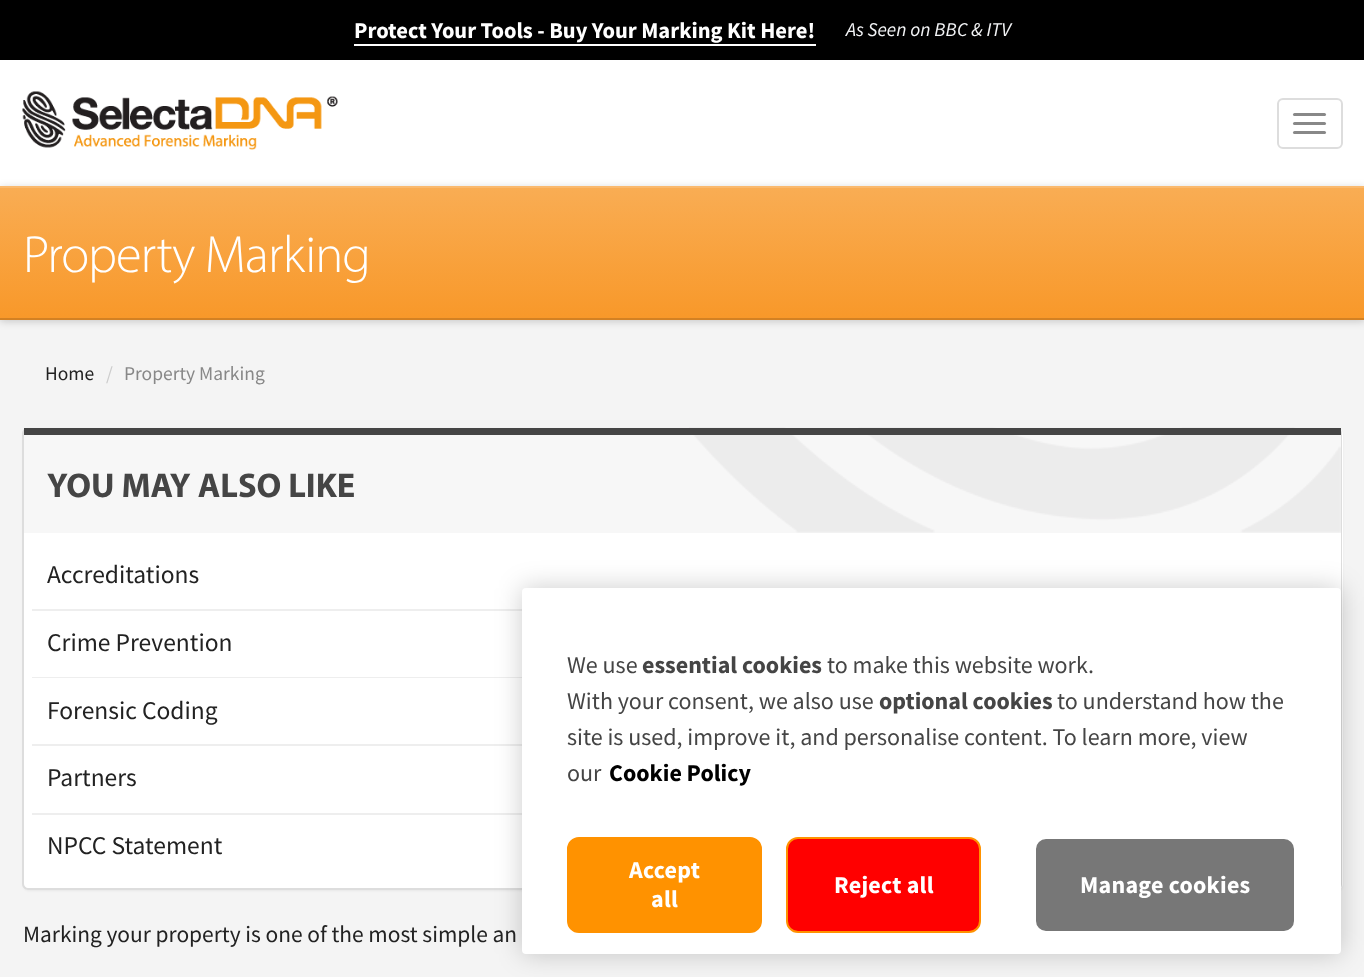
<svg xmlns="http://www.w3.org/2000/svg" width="1364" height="977">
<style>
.a{font:bold 22.5px Source Sans Pro;fill:#fff}
.b{font:italic 19.5px Source Sans Pro;fill:#f3f4f6}
.c{font:300 52.5px Myriad;letter-spacing:-1px;fill:#fff}
.d{font:19.5px Source Sans Pro;fill:#222}
.e{font:19.5px Source Sans Pro;fill:#ccc}
.f{font:19.5px Source Sans Pro;fill:#888}
.g{font:bold 34.5px Myriad;fill:#454545}
.h{font:25.5px Source Sans Pro;fill:#222}
.i{font:23.4px Source Sans Pro;fill:#222}
.j{font:24px Source Sans Pro;fill:#454545}
.k{font:bold 24px Source Sans Pro;fill:#454545}
.l{font:bold 24px Source Sans Pro;fill:#000}
.m{font:bold 24px Source Sans Pro;letter-spacing:0.25px;fill:#fff}
</style>
<defs>
<linearGradient id="g1" gradientUnits="userSpaceOnUse" x1="683" y1="186" x2="683" y2="320"><stop offset="0" stop-color="#f9ad54"/><stop offset="1" stop-color="#f89829"/></linearGradient>
</defs>
<rect width="100%" height="100%" fill="#fff"/>
<path fill="#000" d="M0 0h1364v60H0z"/>
<path fill="#fff" d="M354 44h462v2H354z"/>
<image href="1.png" x="22" y="91" width="316" height="59"/>
<rect fill="none" stroke="#ddd" stroke-width="2" x="1278" y="99" width="64" height="49" rx="5"/>
<rect fill="#888" x="1293" y="113" width="33" height="3" rx="1.5"/>
<rect fill="#888" x="1293" y="122" width="33" height="3" rx="1.5"/>
<rect fill="#888" x="1293" y="131" width="33" height="3" rx="1.5"/>
<path fill="#f4f4f4" d="M0 320h1364v657H0z"/>
<path fill="#00000033" filter="blur(4px)" d="M0 188h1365v133H0z"/>
<path fill="url(#g1)" d="M0 188h1364v130H0z"/>
<path fill="#d38123" d="M0 318h1364v2H0z"/>
<path fill="#fab96e" d="M0 186h1364v2H0z"/>
<rect fill="#0000000d" filter="blur(1px)" x="23" y="429" width="1320" height="462" rx="6"/>
<rect fill="#fff" x="23" y="428" width="1320" height="462" rx="6"/>
<path fill="#ddd" fill-rule="evenodd" d="M28 428h1308c4 0 6 2 6 6v450c0 3-2 6-6 6h-1308c-3 0-6-3-6-6v-450c0-4 3-6 6-6zm0 0h1308c3 0 5 2 5 6v450c0 2-2 4-5 4h-1308c-2 0-4-2-4-4v-450c0-4 2-6 4-6z"/>
<path fill="#f7f7f7" d="M24 435h1317v98H24z"/>
<image href="2.png" x="689" y="427" width="652" height="106"/>
<path fill="#454545" d="M24 428h1317v7H24z"/>
<path fill="#eee" d="M32 609h490v2H32z"/>
<path fill="#eee" d="M32 677h490v1H32z"/>
<path fill="#eee" d="M32 744h490v2H32z"/>
<path fill="#eee" d="M32 813h490v2H32z"/>
<rect fill="#00000033" filter="blur(13.5px)" x="522" y="588" width="819" height="366" rx="4"/>
<rect fill="#fff" x="522" y="588" width="819" height="366" rx="4"/>
<rect fill="#ff9200" stroke="#ff9200" stroke-width="2" x="568" y="838" width="193" height="94" rx="11"/>
<rect fill="#f00" stroke="#ff9200" stroke-width="2" x="787" y="838" width="193" height="94" rx="11"/>
<rect fill="#777" stroke="#fff" stroke-width="2" x="1035" y="838" width="260" height="94" rx="11"/>
<text class="a" x="354" y="38">Protect Your Tools - Buy Your Marking Kit Here!</text>
<text class="b" x="846" y="36">As Seen on BBC &amp; ITV</text>
<text class="c" x="23" y="272">Property Marking</text>
<text class="d" x="45" y="380">Home</text>
<text class="e" x="106" y="380">/</text>
<text class="f" x="124" y="380">Property Marking</text>
<text class="g" x="47" y="497">YOU MAY ALSO LIKE</text>
<text class="h" x="47" y="583">Accreditations</text>
<text class="h" x="47" y="651">Crime Prevention</text>
<text class="h" x="47" y="719">Forensic Coding</text>
<text class="h" x="47" y="786">Partners</text>
<text class="h" x="47" y="854">NPCC Statement</text>
<text class="i" x="23" y="942">Marking your property is one of the most simple an</text>
<text class="j" x="567" y="673">We use</text>
<text class="k" x="642" y="673">essential cookies</text>
<text class="j" x="827" y="673">to make this website work.</text>
<text class="j" x="567" y="709">With your consent, we also use</text>
<text class="k" x="879" y="709">optional cookies</text>
<text class="j" x="1057" y="709">to understand how the</text>
<text class="j" x="567" y="745">site is used, improve it, and personalise content. To learn more, view</text>
<text class="j" x="567" y="781">our</text>
<text class="l" x="609" y="781">Cookie Policy</text>
<text class="m" x="629" y="878">Accept</text>
<text class="m" x="651" y="907">all</text>
<text class="m" x="834" y="893">Reject all</text>
<text class="m" x="1080" y="893">Manage cookies</text>
</svg>
